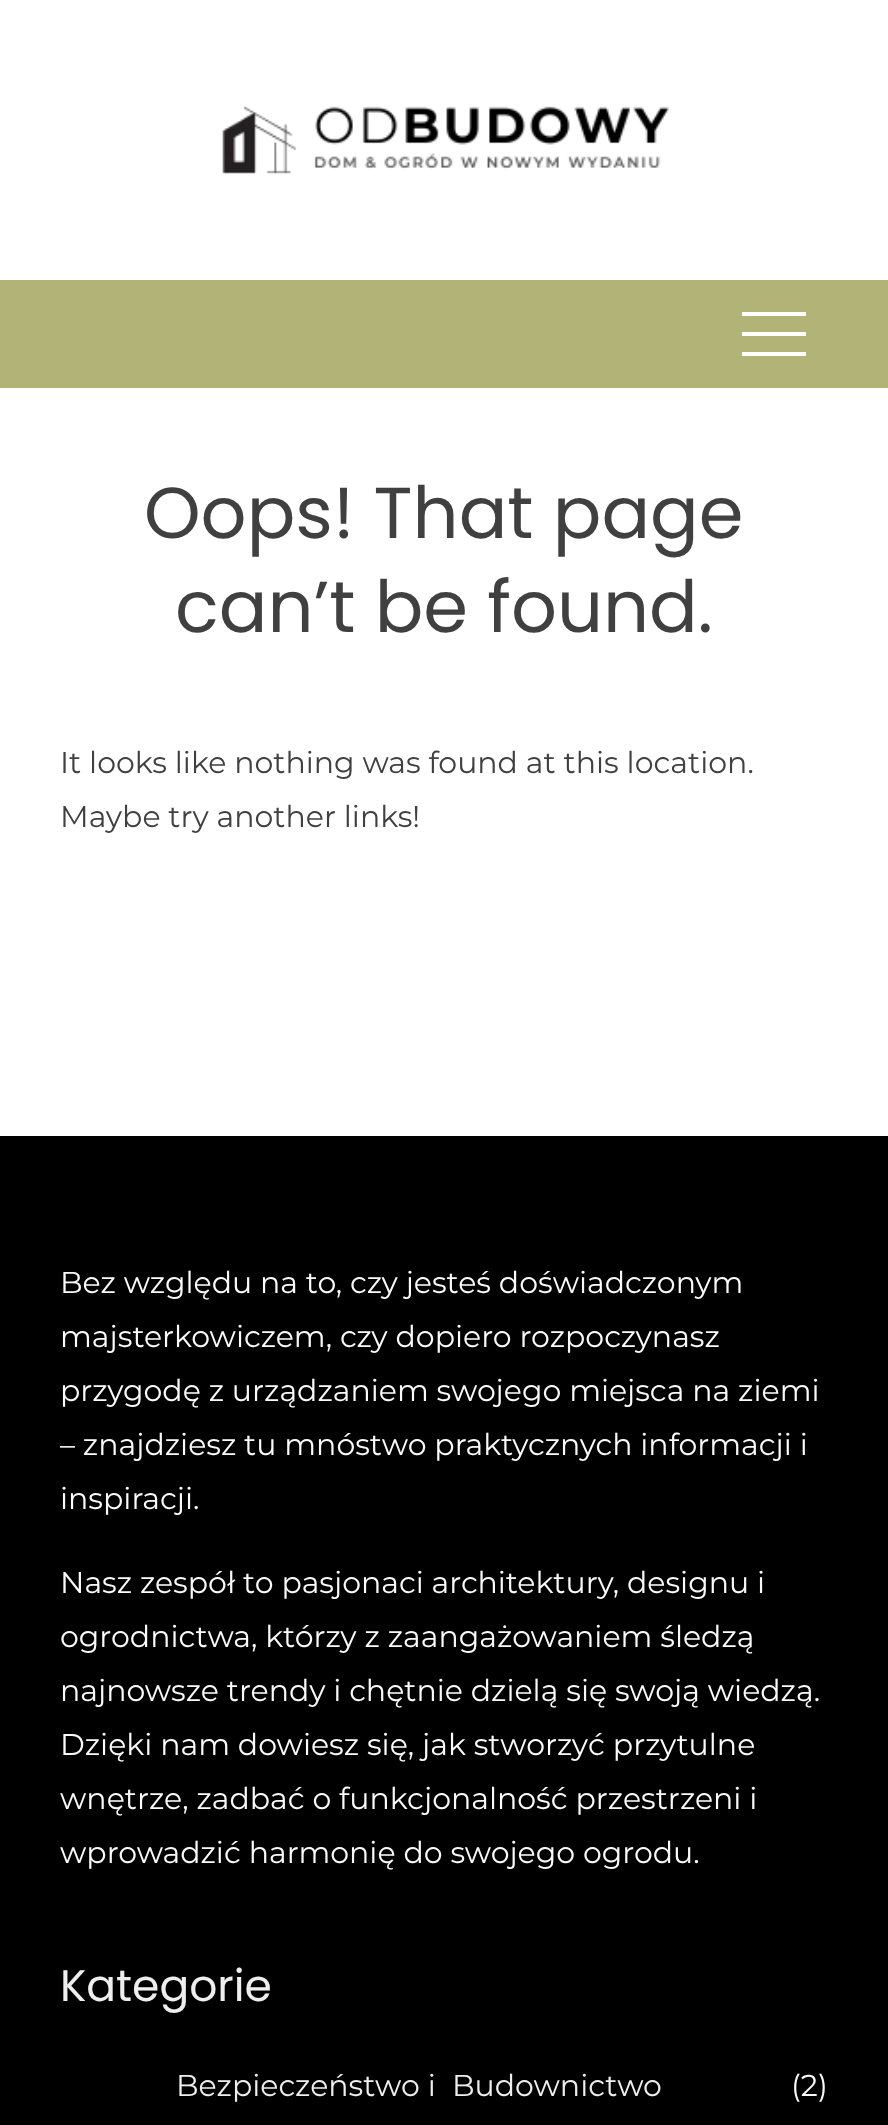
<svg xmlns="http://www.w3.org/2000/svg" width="888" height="2125">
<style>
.a{font:72px Poppins;fill:#404040}
.b{font:30px Montserrat;fill:#404040}
.c{font:30px Montserrat;fill:#fafafa}
.d{font:44px Poppins;fill:#eee}
.e{font:30px Montserrat;fill:#eee}
</style>
<rect width="100%" height="100%" fill="#fff"/>
<image href="1.png" x="222" y="106" width="447" height="68"/>
<path fill="#b2b377" d="M0 280h888v108H0z"/>
<path fill="#fff" d="M742 312h64v4H742z"/>
<path fill="#fff" d="M742 352h64v4H742z"/>
<path fill="#fff" d="M742 332h64v4H742z"/>
<path fill="#000" d="M0 1136h888v989H0z"/>
<text class="a" x="144" y="538">Oops! That page</text>
<text class="a" x="175" y="632">can’t be found.</text>
<text class="b" x="60" y="773">It looks like nothing was found at this location.</text>
<text class="b" x="60" y="827">Maybe try another links!</text>
<text class="c" x="60" y="1293">Bez względu na to, czy jesteś doświadczonym</text>
<text class="c" x="60" y="1347">majsterkowiczem, czy dopiero rozpoczynasz</text>
<text class="c" x="60" y="1401">przygodę z urządzaniem swojego miejsca na ziemi</text>
<text class="c" x="60" y="1455">– znajdziesz tu mnóstwo praktycznych informacji i</text>
<text class="c" x="60" y="1509">inspiracji.</text>
<text class="c" x="60" y="1593">Nasz zespół to pasjonaci architektury, designu i</text>
<text class="c" x="60" y="1647">ogrodnictwa, którzy z zaangażowaniem śledzą</text>
<text class="c" x="60" y="1701">najnowsze trendy i chętnie dzielą się swoją wiedzą.</text>
<text class="c" x="60" y="1755">Dzięki nam dowiesz się, jak stworzyć przytulne</text>
<text class="c" x="60" y="1809">wnętrze, zadbać o funkcjonalność przestrzeni i</text>
<text class="c" x="60" y="1863">wprowadzić harmonię do swojego ogrodu.</text>
<text class="d" x="60" y="2001">Kategorie</text>
<text class="e" x="176" y="2096">Bezpieczeństwo i</text>
<text class="e" x="452" y="2096">Budownictwo</text>
<text class="c" x="791" y="2096">(2)</text>
</svg>
